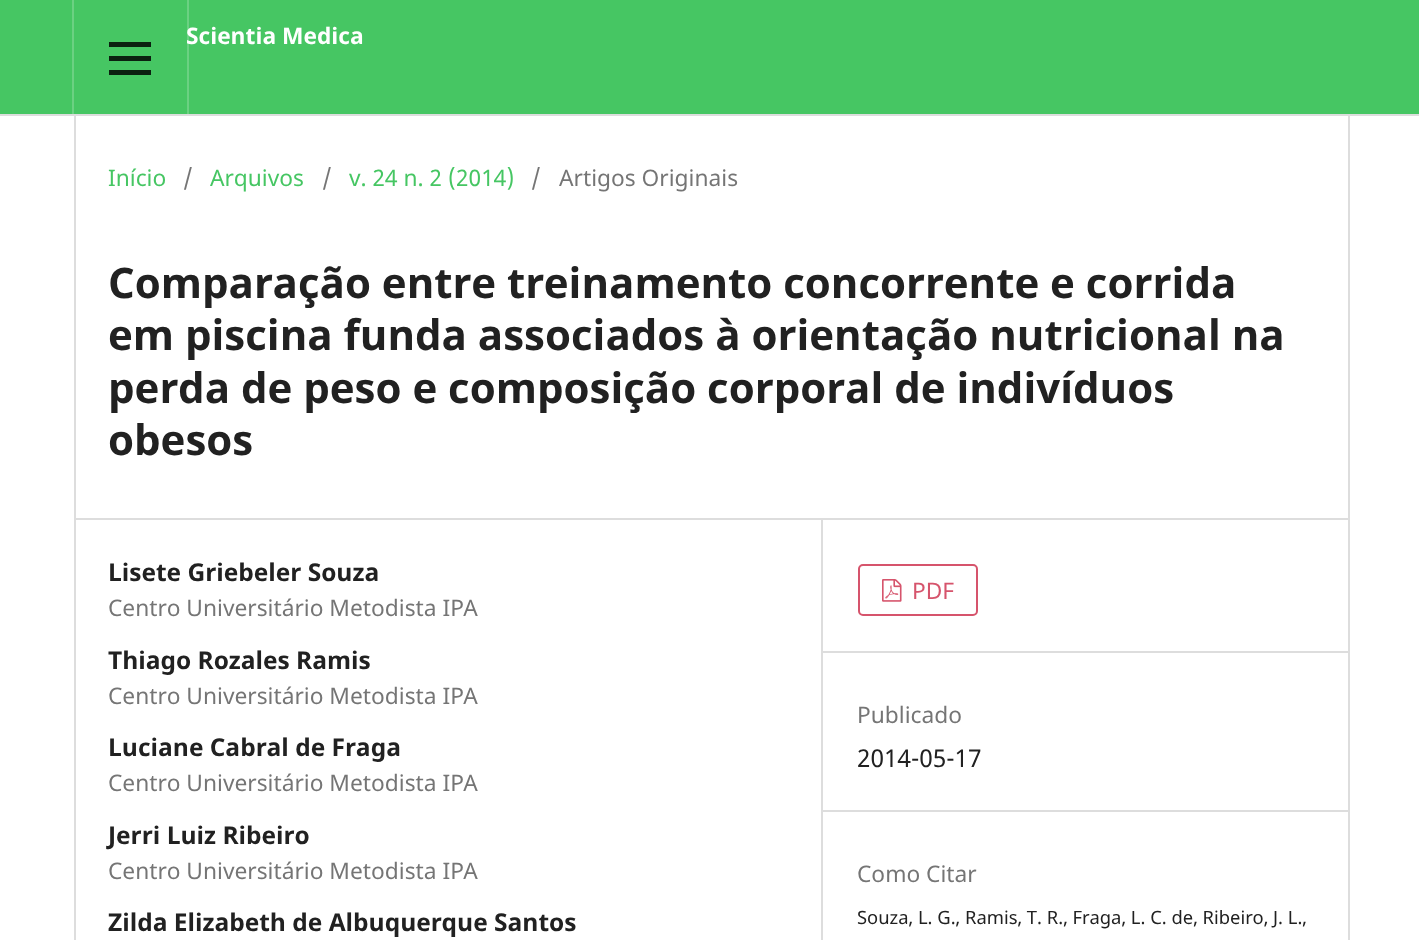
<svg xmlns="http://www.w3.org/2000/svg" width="1419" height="940">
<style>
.a{font:bold 22.75px Noto Sans;fill:#fff}
.b{font:22.75px Noto Sans;fill:#46c663}
.c{font:22.75px Noto Sans;fill:#757575}
.d{font:bold 42px Noto Sans;fill:#212121}
.e{font:bold 24.5px Noto Sans;fill:#212121}
.f{font:22.75px Noto Sans;fill:#d6546c}
.g{font:24.5px Noto Sans;fill:#212121}
.h{font:18.4px Noto Sans;fill:#212121}
</style>
<rect width="100%" height="100%" fill="#fff"/>
<path fill="#46c663" d="M0 0h1419v114H0z"/>
<path fill="#ddd" d="M0 114h1419v2H0z"/>
<path fill="#6bd182" d="M72 0v114h114h-112v-114z"/>
<path fill="#0b2010" d="M109 70h42v5H109z"/>
<path fill="#0b2010" d="M109 42h42v5H109z"/>
<path fill="#0b2010" d="M109 56h42v5H109z"/>
<path fill="#ddd" d="M74 518h1274v2H74z"/>
<path fill="#ddd" d="M74 116h2v824H74z"/>
<path fill="#ddd" d="M821 520h2v420H821z"/>
<path fill="#ddd" d="M823 651h525v2H823z"/>
<rect fill="none" stroke="#d6546c" stroke-width="2" x="859" y="565" width="118" height="50" rx="4"/>
<image href="1.png" x="882" y="579" width="20" height="23"/>
<path fill="#ddd" d="M823 810h525v2H823z"/>
<path fill="#ddd" d="M1348 116h2v824H1348z"/>
<text class="a" x="186" y="44">Scientia Medica</text>
<path fill="#ffffff33" d="M75 114h114v-114h-2v114z"/>
<text class="b" x="108" y="186">Início</text>
<text class="c" x="183" y="186">/</text>
<text class="b" x="210" y="186">Arquivos</text>
<text class="c" x="322" y="186">/</text>
<text class="b" x="349" y="186">v. 24 n. 2 (2014)</text>
<text class="c" x="531" y="186">/</text>
<text class="c" x="559" y="186">Artigos Originais</text>
<text class="d" x="108" y="298">Comparação entre treinamento concorrente e corrida</text>
<text class="d" x="108" y="350">em piscina funda associados à orientação nutricional na</text>
<text class="d" x="108" y="403">perda de peso e composição corporal de indivíduos</text>
<text class="d" x="108" y="455">obesos</text>
<text class="e" x="108" y="581">Lisete Griebeler Souza</text>
<text class="c" x="108" y="616">Centro Universitário Metodista IPA</text>
<text class="e" x="108" y="669">Thiago Rozales Ramis</text>
<text class="c" x="108" y="704">Centro Universitário Metodista IPA</text>
<text class="e" x="108" y="756">Luciane Cabral de Fraga</text>
<text class="c" x="108" y="791">Centro Universitário Metodista IPA</text>
<text class="e" x="108" y="844">Jerri Luiz Ribeiro</text>
<text class="c" x="108" y="879">Centro Universitário Metodista IPA</text>
<text class="e" x="108" y="931">Zilda Elizabeth de Albuquerque Santos</text>
<text class="f" x="912" y="599">PDF</text>
<text class="c" x="857" y="723">Publicado</text>
<text class="g" x="857" y="767">2014-05-17</text>
<text class="c" x="857" y="882">Como Citar</text>
<text class="h" x="857" y="924">Souza, L. G., Ramis, T. R., Fraga, L. C. de, Ribeiro, J. L.,</text>
</svg>
